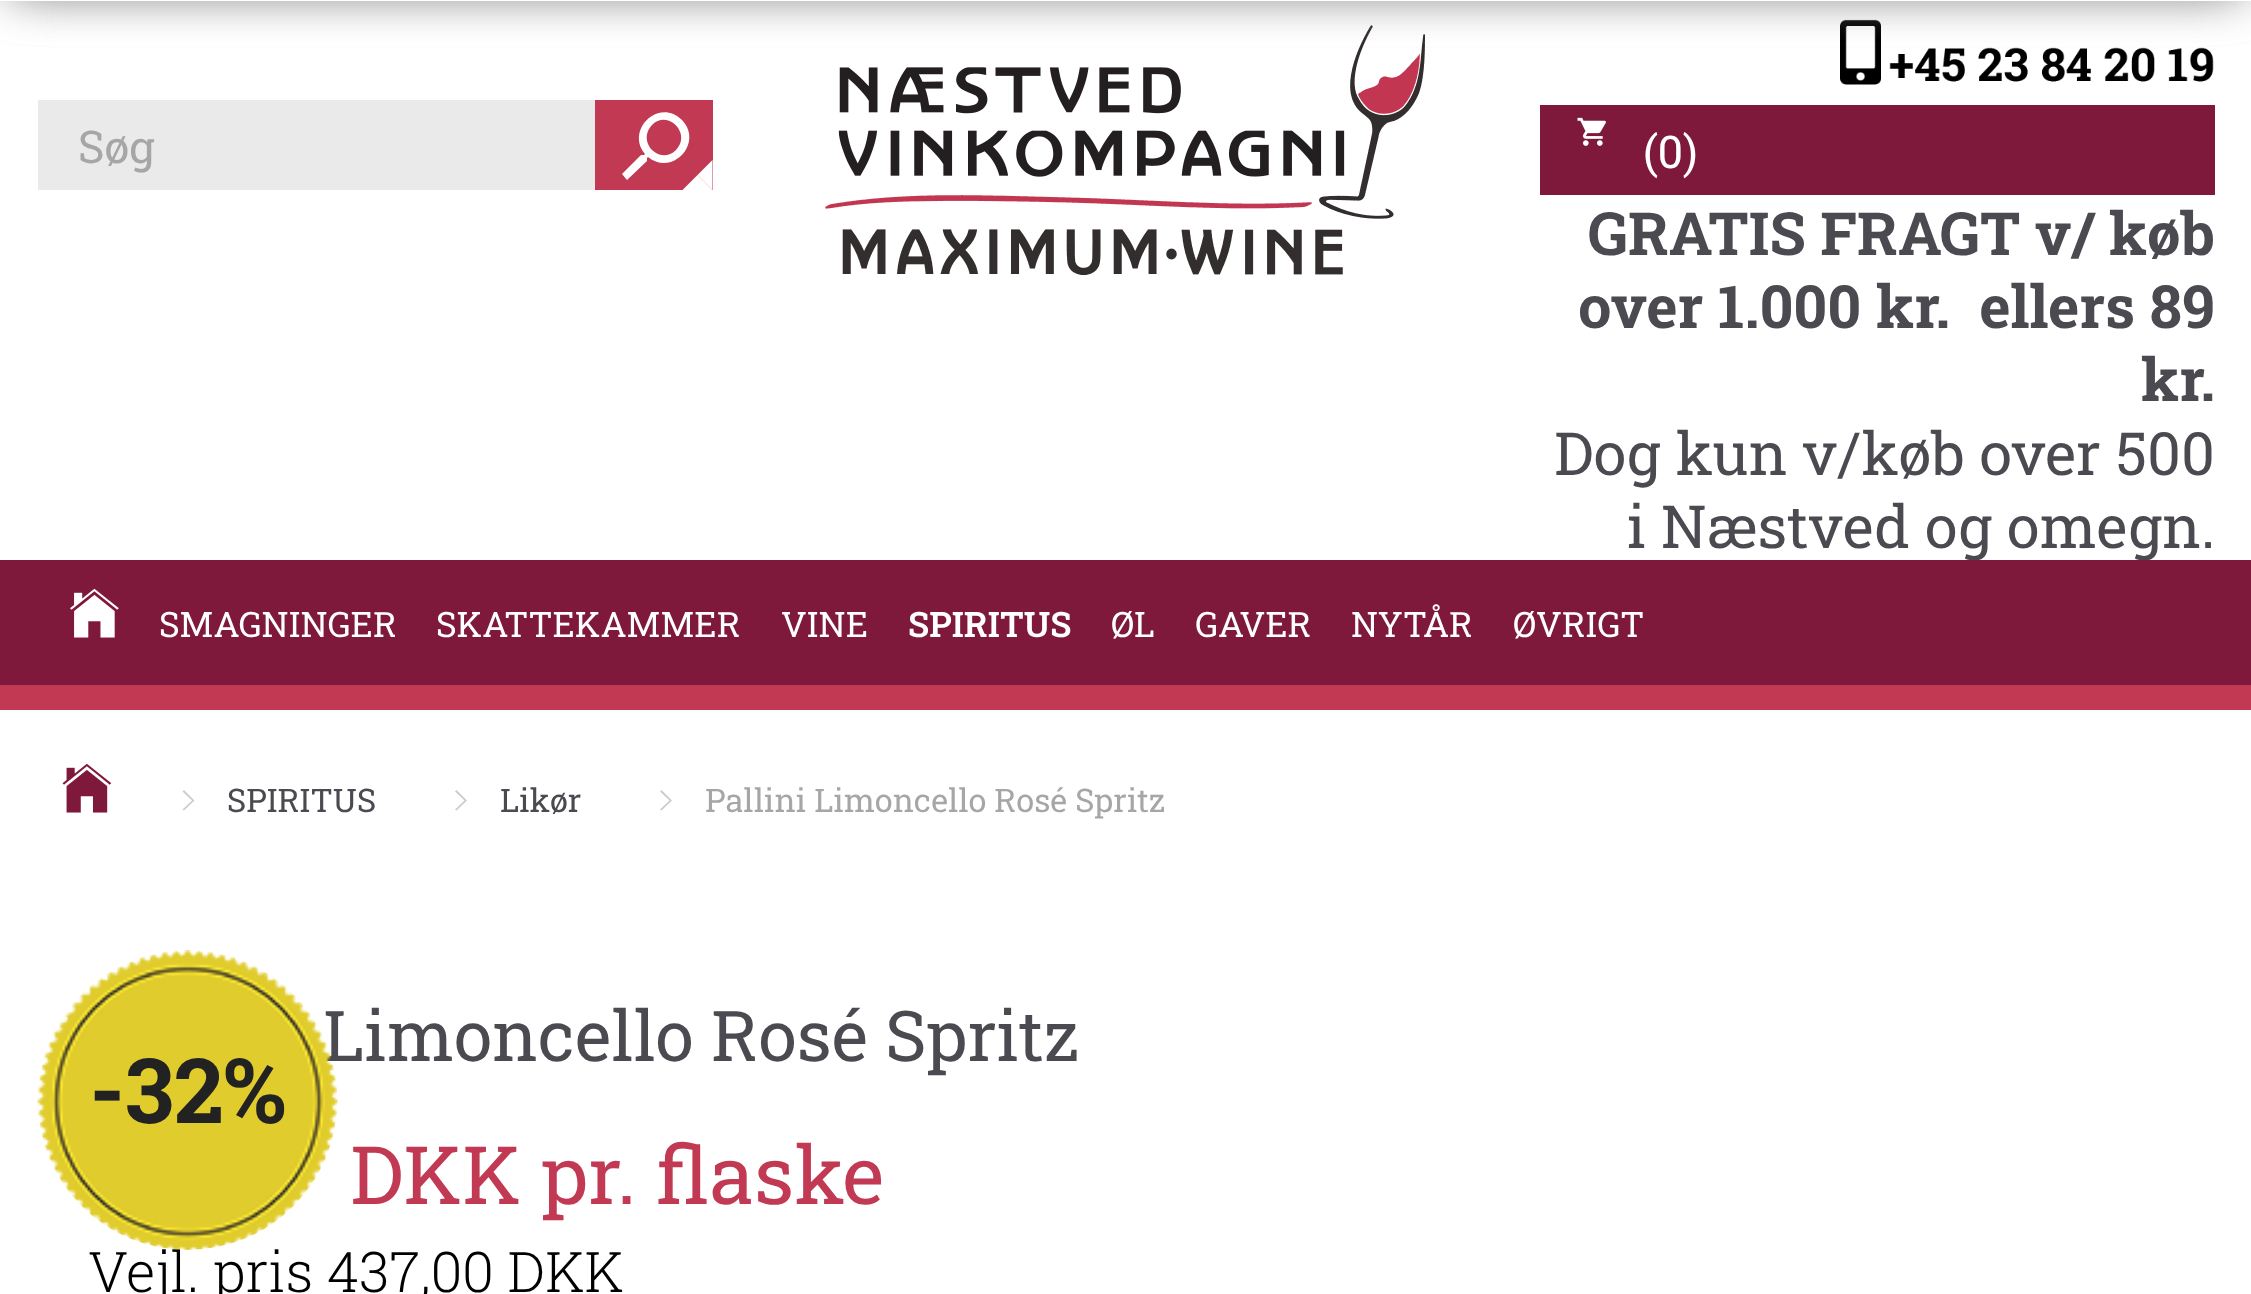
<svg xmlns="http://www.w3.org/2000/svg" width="2251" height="1294">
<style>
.a{font:45px Roboto Slab;fill:#a6a6a6}
.b{font:45px Roboto Slab;fill:#fff}
.c{font:bold 59.5px Roboto Slab;fill:#4b4a50}
.d{font:59.5px Roboto Slab;fill:#4b4a50}
.e{font:35px Roboto Slab;fill:#fff}
.f{font:600 35px Roboto Slab;fill:#fff}
.g{font:32.5px Roboto Slab;fill:#4b4a50}
.h{font:32.5px Roboto Slab;fill:#a6a6a6}
.i{font:70px Roboto Slab;fill:#4b4a50}
.j{font:80.5px Roboto Slab;fill:#c13953}
.k{font:300 56px Roboto Slab;fill:#000}
.l{font:bold 90px Roboto Slab;fill:#222}
</style>
<rect width="100%" height="100%" fill="#fff"/>
<image href="1.png" x="825" y="25" width="600" height="250"/>
<image href="2.png" x="1840" y="19" width="374" height="66"/>
<path fill="#949494" filter="blur(25px)" d="M13 -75h2227v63H13z"/>
<path fill="#949494" filter="blur(25px)" d="M13 -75h2227v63H13z"/>
<path fill="#fff" d="M0 0h2251v1H0z"/>
<path fill="#eaeaea" d="M38 100h557v90H38z"/>
<path fill="#c13953" d="M595 100h118v90H595z"/>
<path fill="#fff" d="M641 155l-19 19l5 6l20-19v-3l1-1c24 20 56-14 34-37c-23-23-57 10-37 34l-1 1zm35-5c-16 16-40-8-24-25c16-16 40 9 24 25z"/>
<path fill="#fff" d="M712.5 160v30l-15-15z"/>
<path fill="#fff" d="M712.5 190h-30l15-15z"/>
<path fill="#7e193b" d="M1540 105h675v90H1540z"/>
<image href="3.png" x="1577" y="117" width="29" height="29"/>
<path fill="#c13953" d="M0 685h2251v25H0z"/>
<image href="5.png" x="62" y="763" width="50" height="50"/>
<path fill="#ccc" d="M182.5 791.5l1.5-1.5l10.5 10.5l-10.5 10l-1.5-1l9.5-9z"/>
<path fill="#ccc" d="M455 791.5l1.5-1.5l10.5 10.5l-10.5 10l-1.5-1l9.5-9z"/>
<path fill="#ccc" d="M660 791.5l1.5-1.5l10.5 10.5l-10.5 10l-1.5-1l9.5-9z"/>
<text class="a" x="78" y="163">Søg</text>
<text class="b" x="1643" y="168">(0)</text>
<text class="c" x="1588" y="255">GRATIS FRAGT v/ køb</text>
<text class="c" xml:space="preserve" x="1578" y="328">over 1.000 kr.  ellers 89</text>
<text class="c" x="2141" y="401">kr.</text>
<text class="d" x="1554" y="475">Dog kun v/køb over 500</text>
<text class="d" x="1627" y="548">i Næstved og omegn.</text>
<path fill="#7e193b" d="M0 560h2251v125H0z"/>
<image href="4.png" x="70" y="588" width="49" height="50"/>
<text class="e" x="159" y="637">SMAGNINGER</text>
<text class="e" x="436" y="637">SKATTEKAMMER</text>
<text class="e" x="781" y="637">VINE</text>
<text class="f" x="908" y="637">SPIRITUS</text>
<text class="e" x="1111" y="637">ØL</text>
<text class="e" x="1195" y="637">GAVER</text>
<text class="e" x="1351" y="637">NYTÅR</text>
<text class="e" x="1513" y="637">ØVRIGT</text>
<text class="g" x="227" y="812">SPIRITUS</text>
<text class="g" x="500" y="812">Likør</text>
<text class="h" x="705" y="812">Pallini Limoncello Rosé Spritz</text>
<text class="i" x="323" y="1061">Limoncello Rosé Spritz</text>
<text class="j" x="350" y="1204">DKK pr. flaske</text>
<text class="k" x="88" y="1292">Vejl. pris 437,00 DKK</text>
<image href="6.png" x="37" y="950" width="301" height="300"/>
<text class="l" x="89" y="1123">-32%</text>
</svg>
